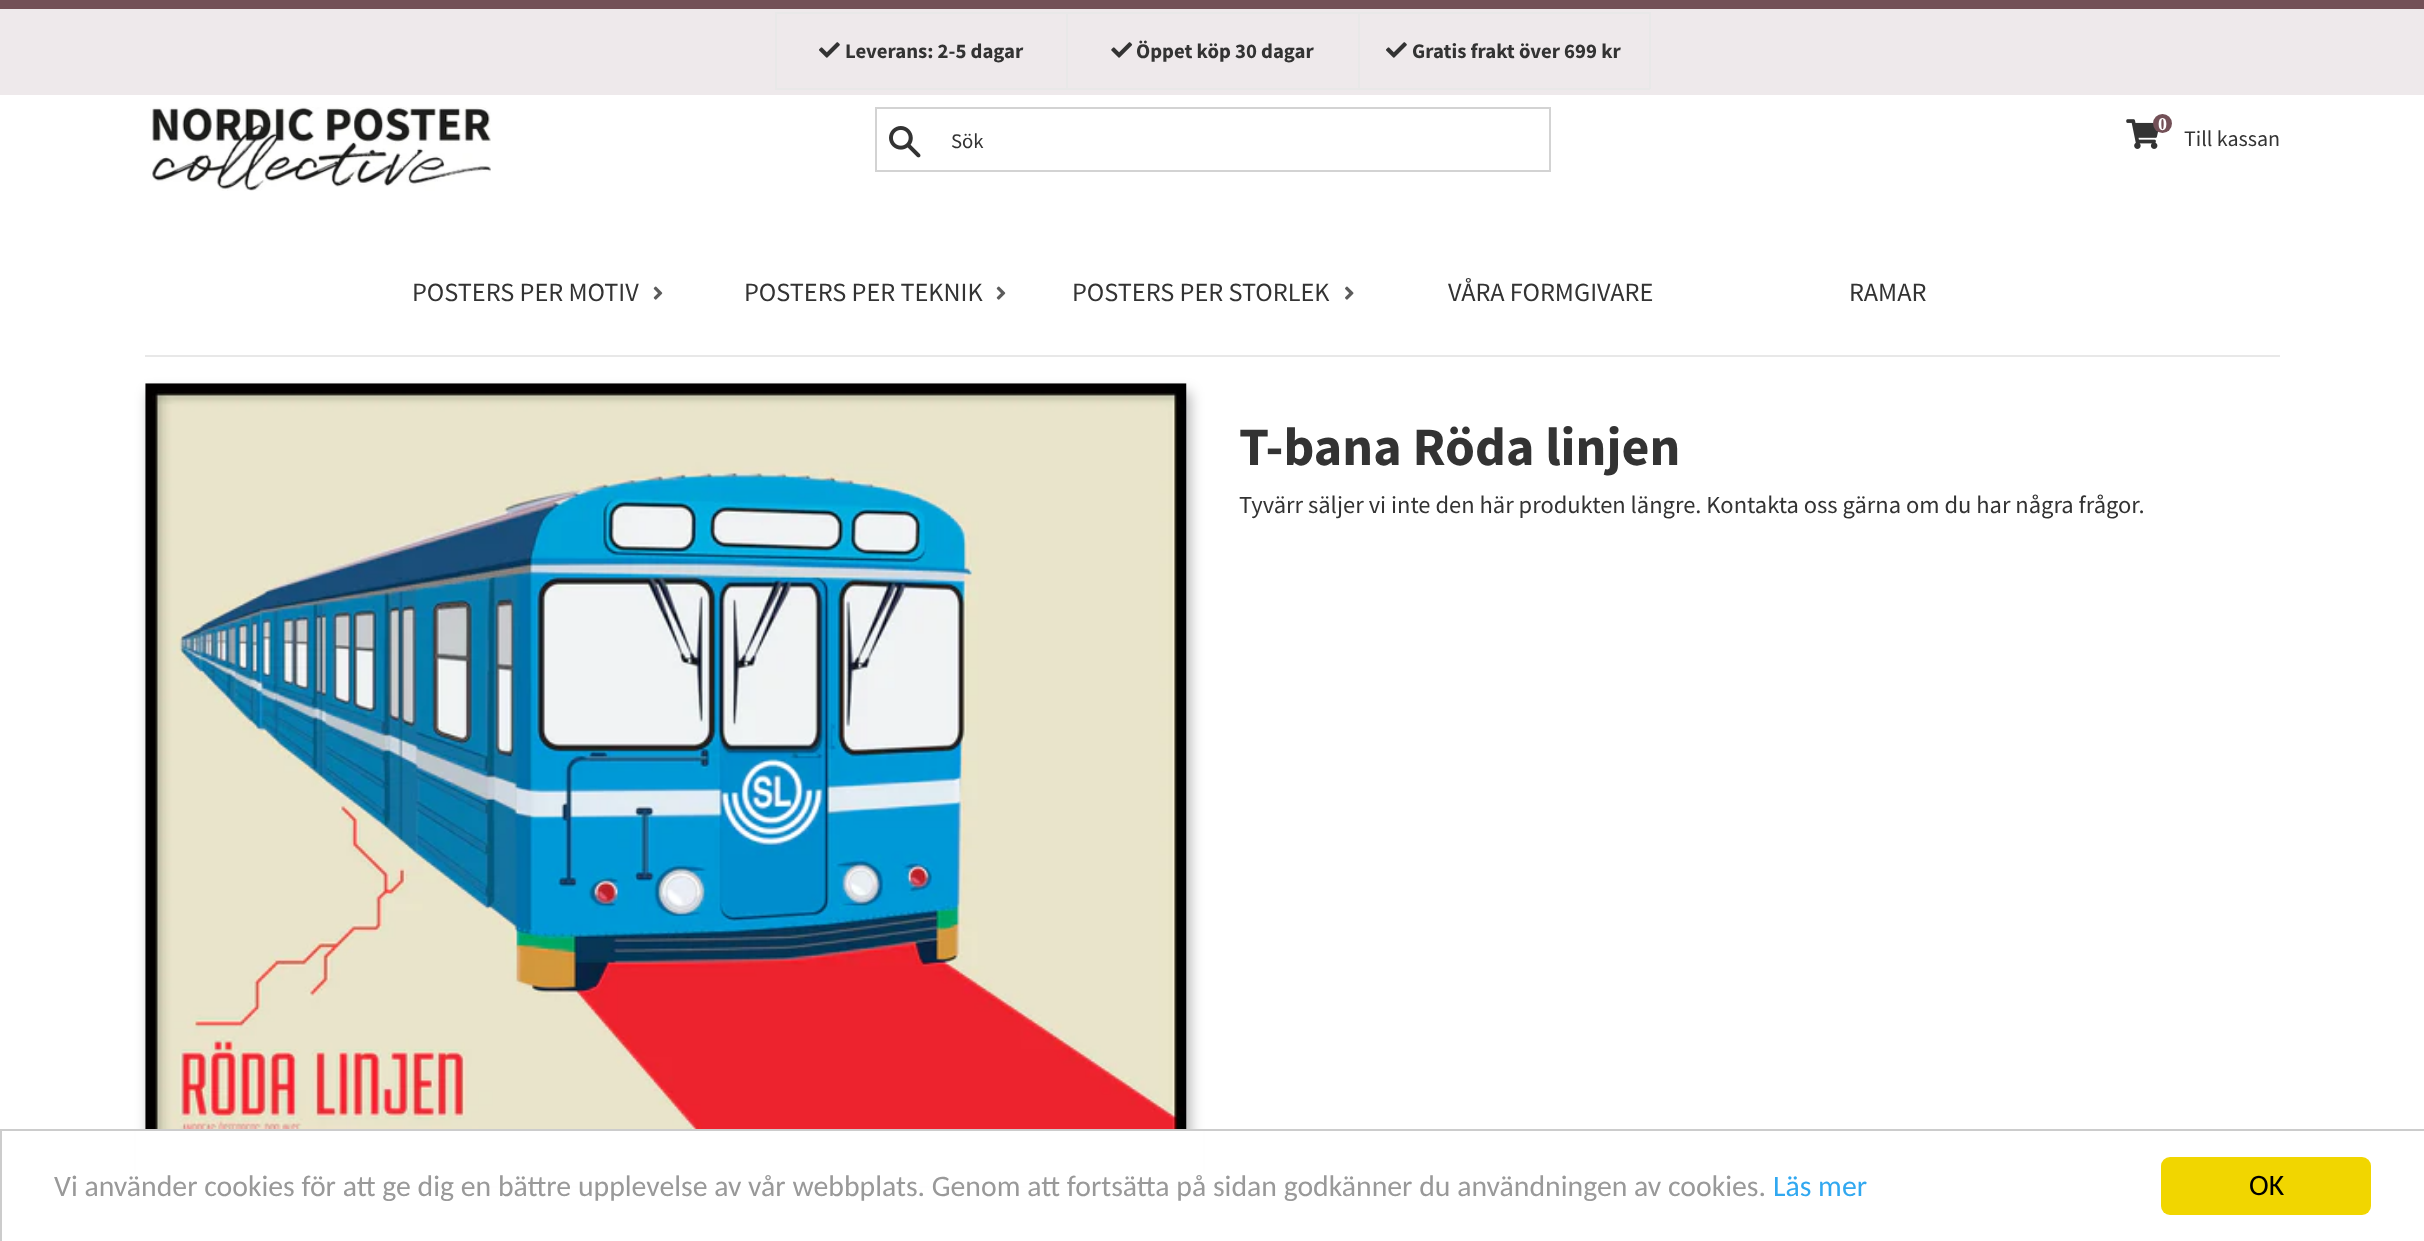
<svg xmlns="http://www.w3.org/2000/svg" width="2424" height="1241">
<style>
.a{font:bold 20.75px Source Sans Pro;fill:#333}
.b{font:20.75px Source Sans Pro;fill:#333}
.c{font:bold 18px Liberation Serif;fill:#fff}
.d{font:22px Source Sans Pro;fill:#333}
.e{font:26.25px Source Sans Pro;fill:#333}
.f{font:bold 54px Source Sans Pro;fill:#333}
.g{font:24.5px Source Sans Pro;fill:#333}
.h{font:29.75px Carlito;fill:#999}
.i{font:29.75px Carlito;fill:#31a8f0}
.j{font:29.75px Carlito;fill:#000}
</style>
<rect width="100%" height="100%" fill="#fff"/>
<path fill="#735057" d="M0 0h2424v9H0z"/>
<path fill="#eee9eb" d="M0 9h2424v86H0z"/>
<path fill="#e8e8e8" d="M775 12h875v2H775z"/>
<path fill="#e8e8e8" d="M1649 12h2v77H1649z"/>
<path fill="#e8e8e8" d="M775 88h875v2H775z"/>
<path fill="#e8e8e8" d="M775 12h2v77H775z"/>
<image href="1.png" x="819" y="42" width="21" height="16"/>
<path fill="#e8e8e8" d="M1066 12h2v77H1066z"/>
<image href="2.png" x="1111" y="42" width="22" height="16"/>
<path fill="#e8e8e8" d="M1358 12h2v77H1358z"/>
<image href="1.png" x="1386" y="42" width="21" height="16"/>
<image href="3.png" x="150" y="107" width="341" height="84"/>
<path fill="none" stroke="#d3d3d3" stroke-width="2" d="M876 108h674v63H876z"/>
<image href="4.png" x="889" y="126" width="32" height="32"/>
<image href="5.png" x="2126" y="119" width="33" height="30"/>
<circle fill="#735057" cx="2162.5" cy="123.5" r="9.5"/>
<image href="6.png" x="653" y="286" width="10" height="14"/>
<image href="6.png" x="996" y="286" width="10" height="14"/>
<image href="7.png" x="1345" y="286" width="9" height="14"/>
<path fill="#e8e8e8" d="M145 355h2135v2H145z"/>
<path fill="#0000004d" filter="blur(7px)" d="M149 392h1041v781H149z"/>
<image href="8.png" x="145" y="383" width="1042" height="746"/>
<path fill="#fff" d="M136 1131h1067v55H136z"/>
<path fill="none" stroke="#ccc" stroke-width="2" d="M1 1130h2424v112H1z"/>
<rect fill="#f1d600" x="2161" y="1157" width="210" height="58" rx="9"/>
<text class="a" x="845" y="58">Leverans: 2-5 dagar</text>
<text class="a" x="1136" y="58">Öppet köp 30 dagar</text>
<text class="a" x="1412" y="58">Gratis frakt över 699 kr</text>
<text class="b" x="951" y="148">Sök</text>
<text class="c" x="2158" y="130">0</text>
<text class="d" x="2184" y="146">Till kassan</text>
<text class="e" x="412" y="301">POSTERS PER MOTIV</text>
<text class="e" x="744" y="301">POSTERS PER TEKNIK</text>
<text class="e" x="1072" y="301">POSTERS PER STORLEK</text>
<text class="e" x="1448" y="301">VÅRA FORMGIVARE</text>
<text class="e" x="1849" y="301">RAMAR</text>
<text class="f" x="1239" y="465">T-bana Röda linjen</text>
<text class="g" x="1239" y="513">Tyvärr säljer vi inte den här produkten längre. Kontakta oss gärna om du har några frågor.</text>
<text class="h" x="54" y="1196">Vi använder cookies för att ge dig en bättre upplevelse av vår webbplats. Genom att fortsätta på sidan godkänner du användningen av cookies.</text>
<text class="i" x="1773" y="1196">Läs mer</text>
<text class="j" x="2249" y="1195">OK</text>
</svg>
